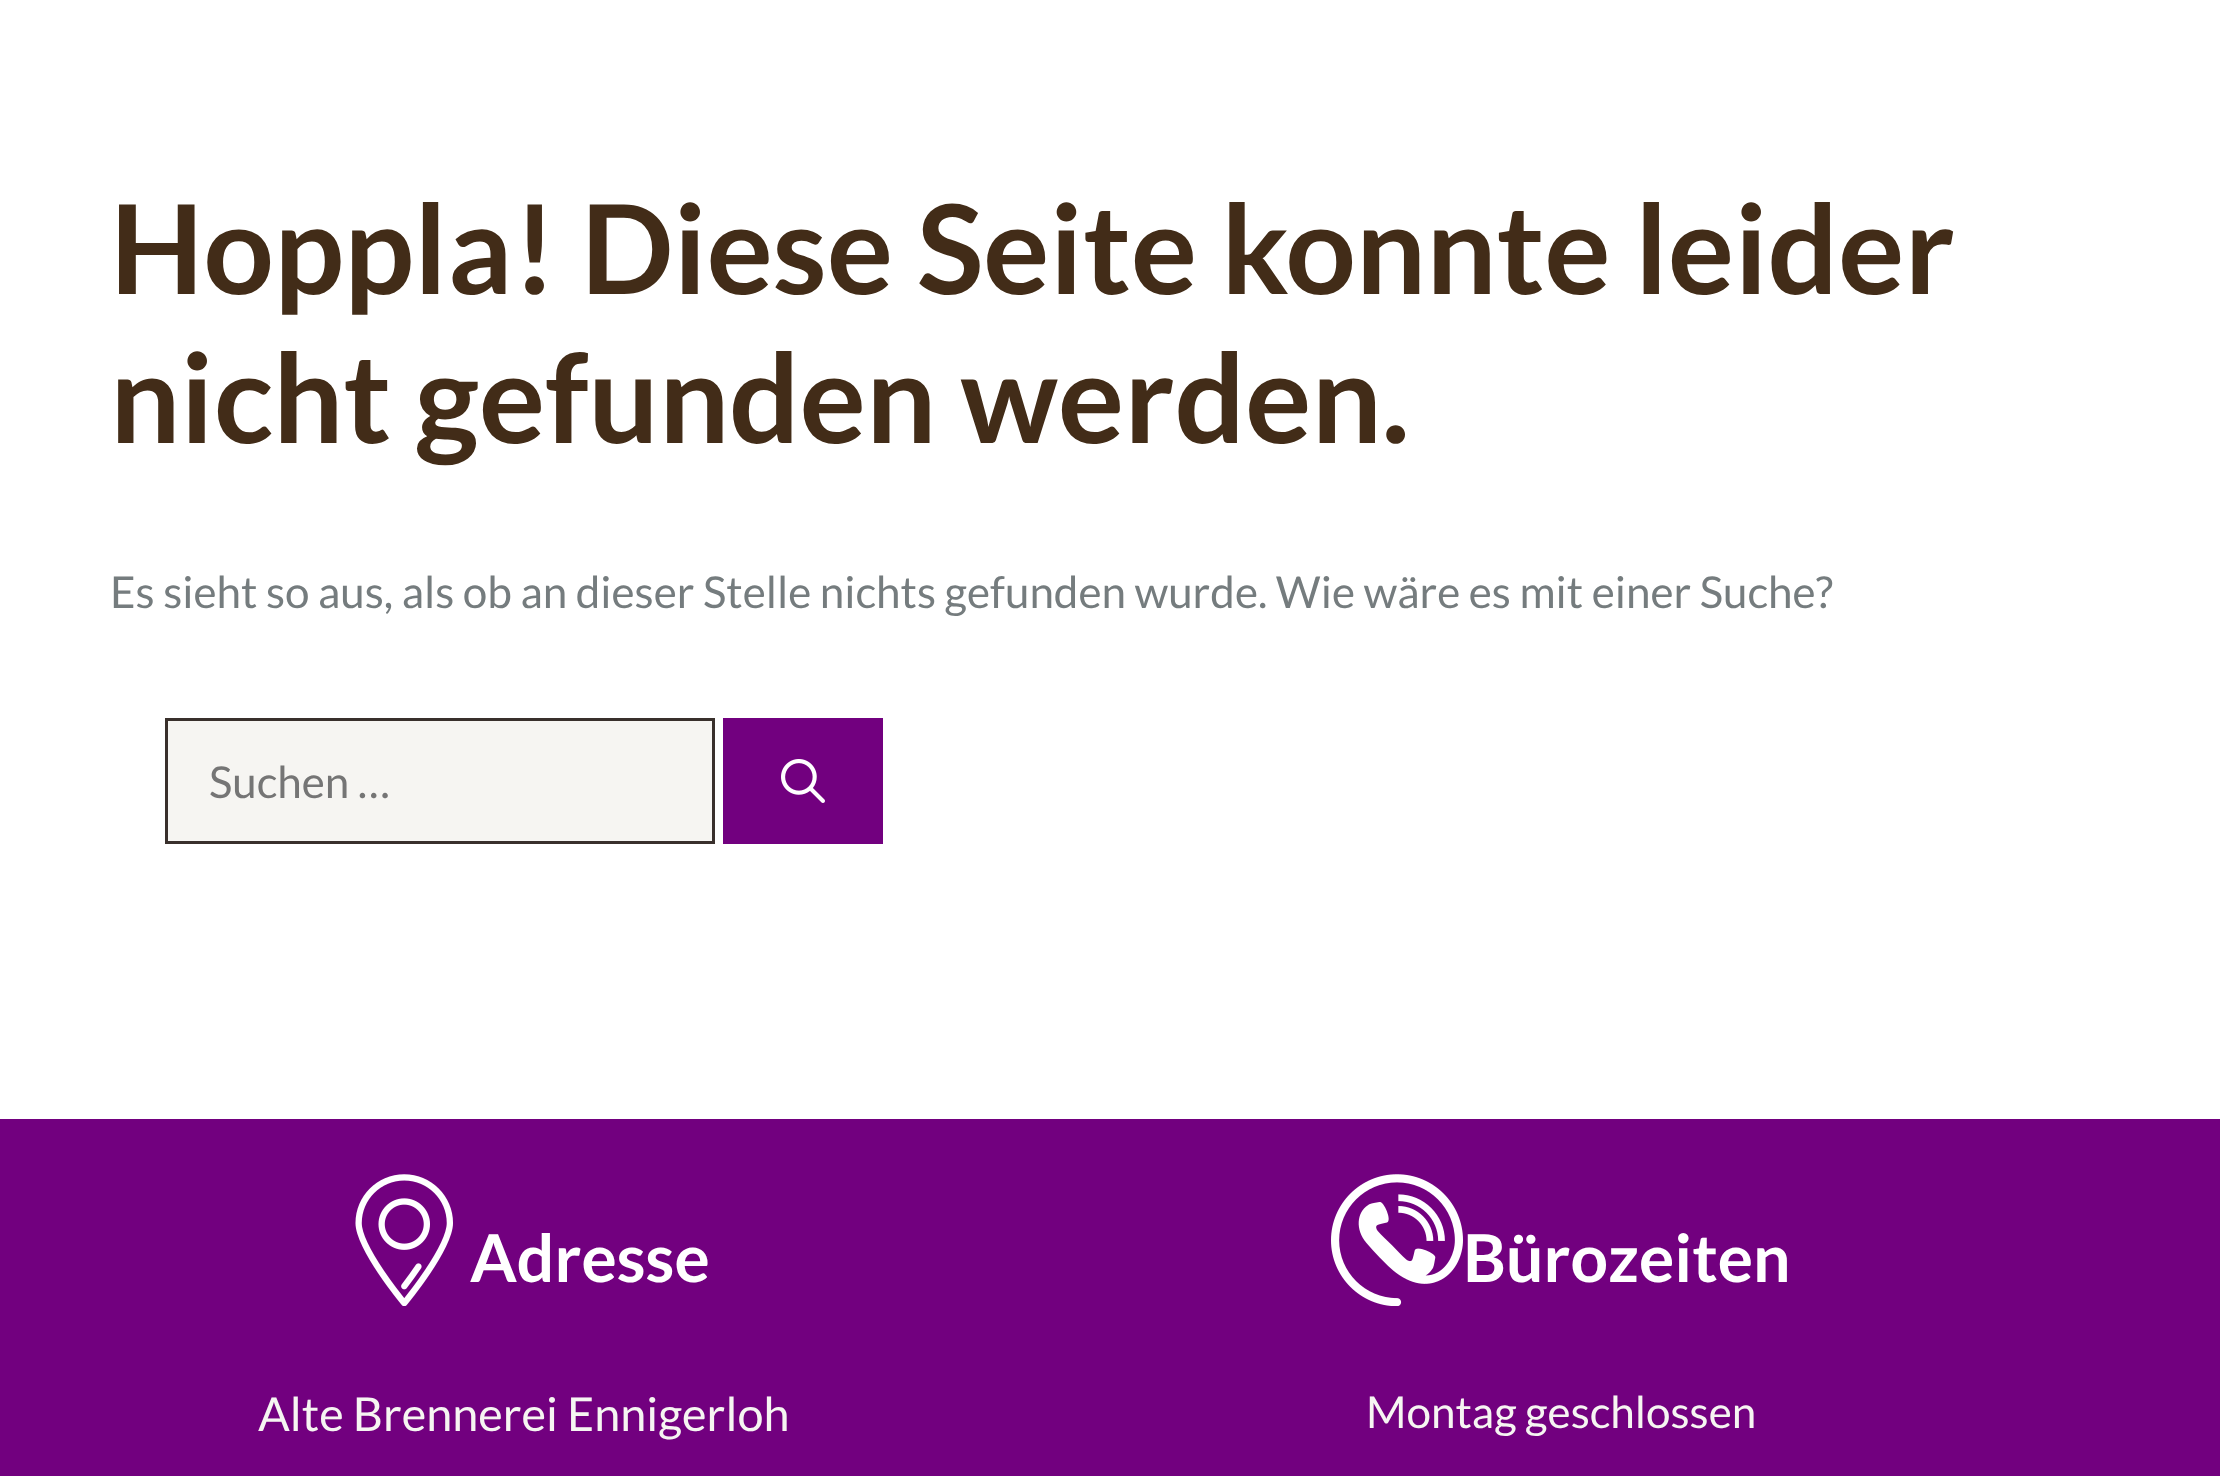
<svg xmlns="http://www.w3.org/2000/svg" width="2220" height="1476">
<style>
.a{font:bold 123.75px Lato;fill:#422c18}
.b{font:44px Lato;fill:#757c7e}
.c{font:44px Lato;fill:#757575}
.d{font:bold 66px Lato;fill:#fff}
.e{font:46.75px Lato;fill:#f6f5f2}
.f{font:44px Lato;fill:#f6f5f2}
</style>
<rect width="100%" height="100%" fill="#fff"/>
<path fill="#f6f5f2" stroke="#39302c" stroke-width="3" d="M166.5 719.5h547v123H166.5z"/>
<path fill="#72007f" d="M723 718h160v126H723z"/>
<image href="1.png" x="781" y="759" width="44" height="44"/>
<path fill="#72007f" d="M0 1119h2220v357H0z"/>
<image href="2.png" x="355" y="1174" width="98" height="132"/>
<image href="3.png" x="1331" y="1174" width="132" height="132"/>
<text class="a" x="110" y="294">Hoppla! Diese Seite konnte leider</text>
<text class="a" x="110" y="443">nicht gefunden werden.</text>
<text class="b" x="110" y="608">Es sieht so aus, als ob an dieser Stelle nichts gefunden wurde. Wie wäre es mit einer Suche?</text>
<text class="c" x="209" y="798">Suchen …</text>
<text class="d" x="470" y="1282">Adresse</text>
<text class="e" x="258" y="1431">Alte Brennerei Ennigerloh</text>
<text class="d" x="1463" y="1282">Bürozeiten</text>
<text class="f" x="1366" y="1428">Montag geschlossen</text>
</svg>
